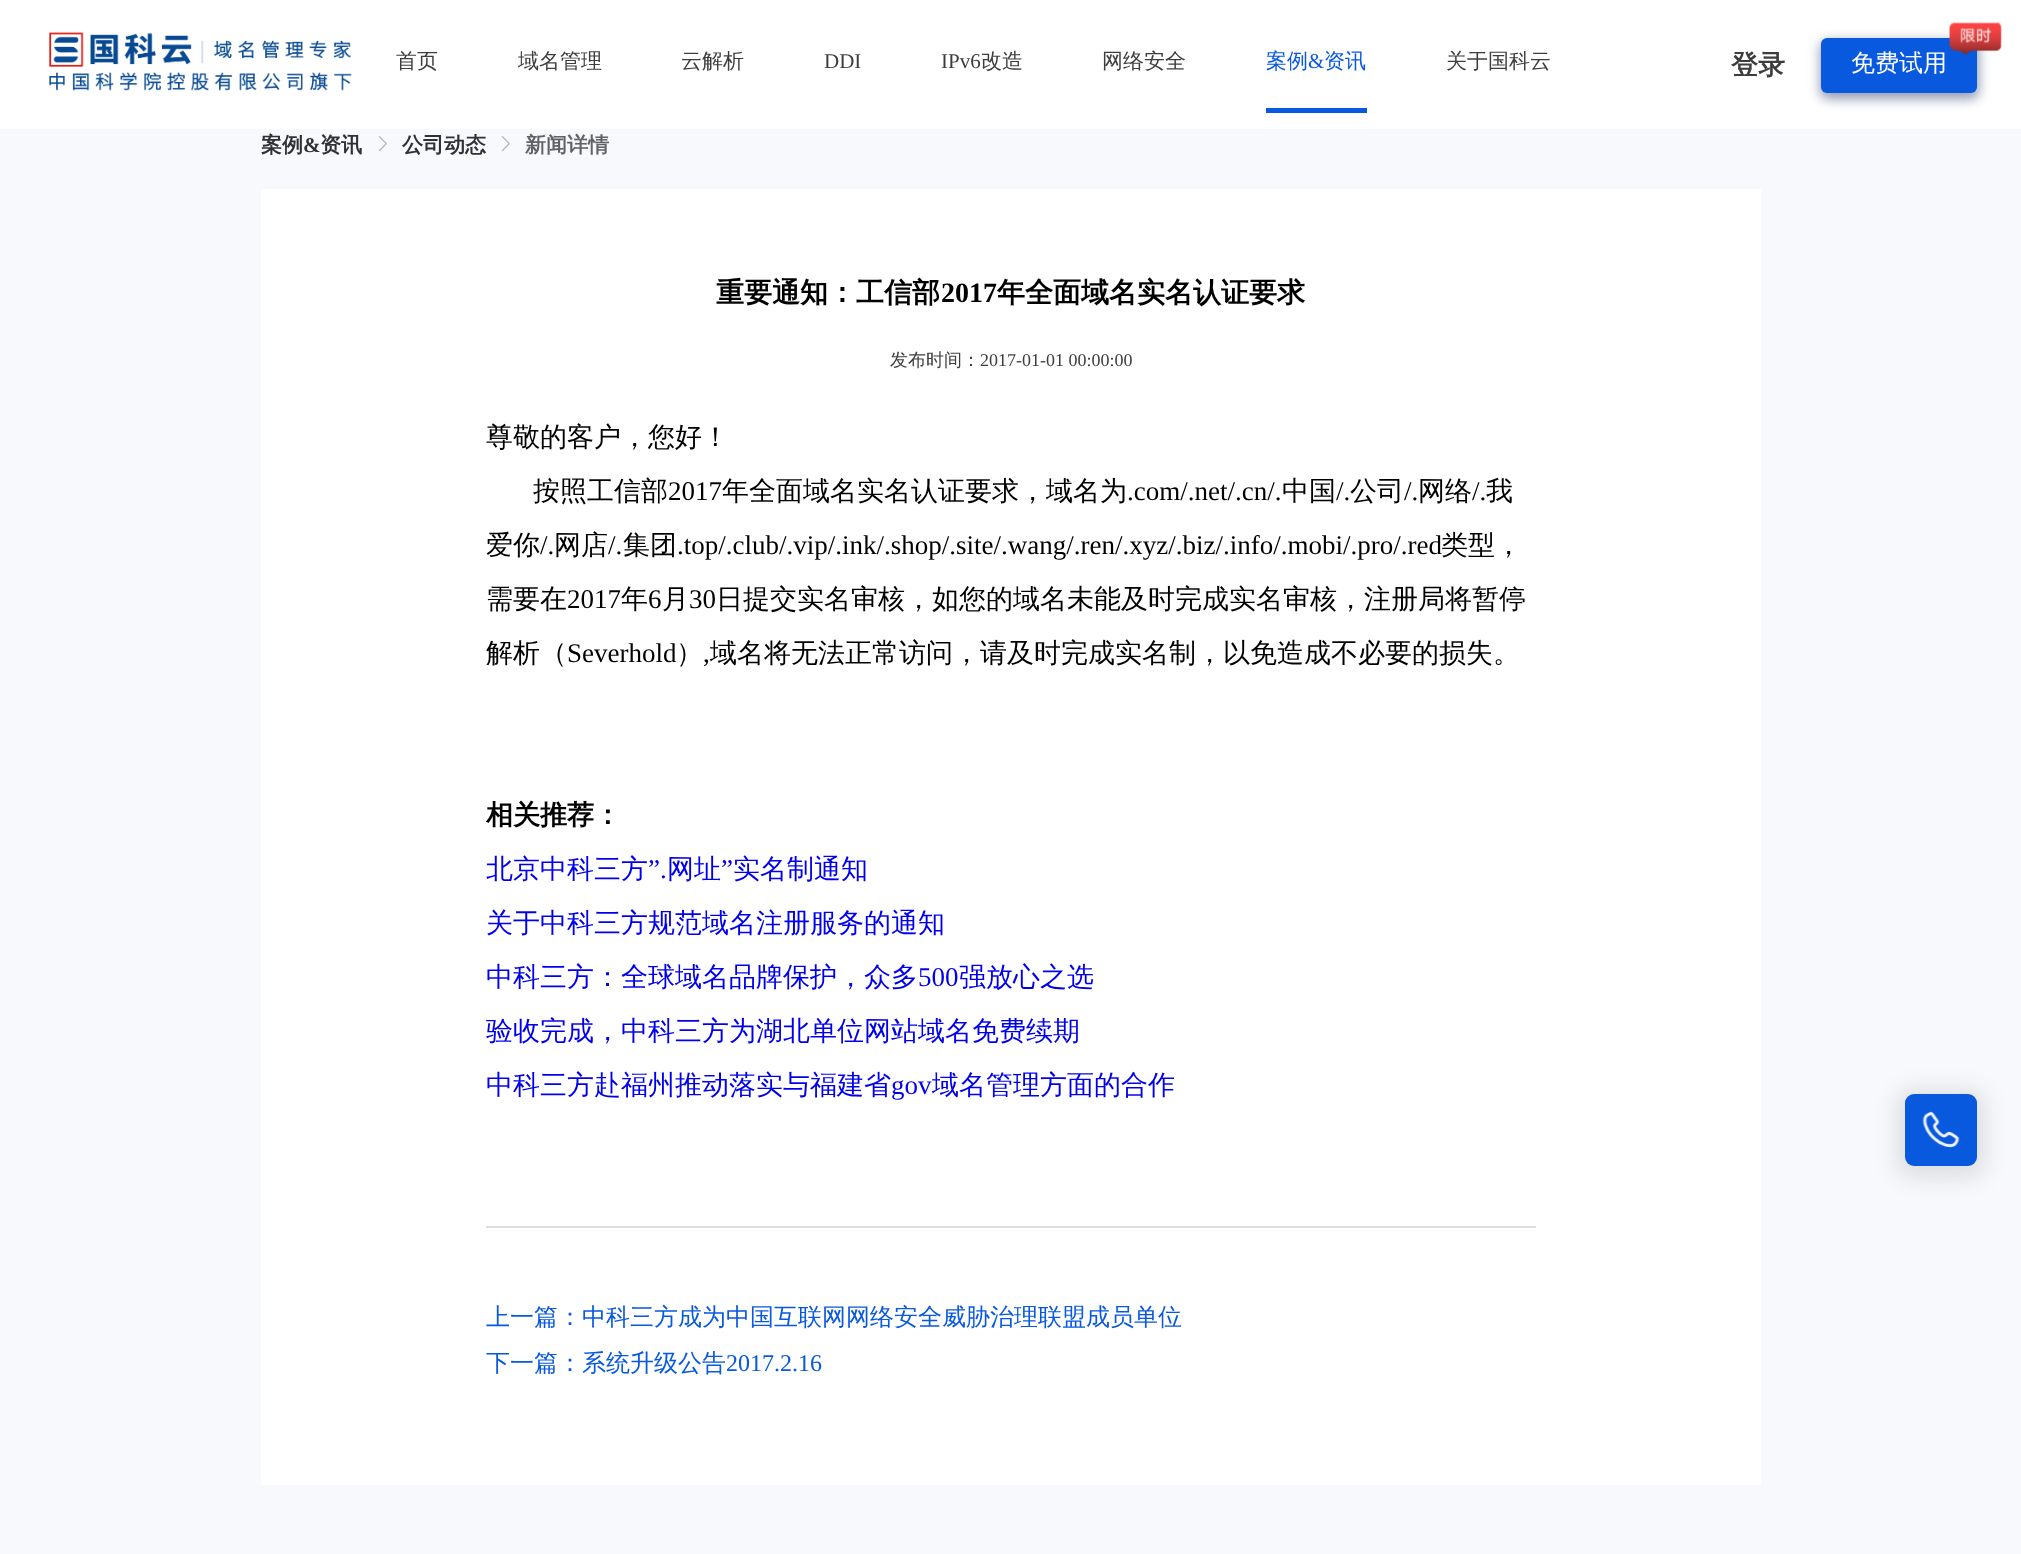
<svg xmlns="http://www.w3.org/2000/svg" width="2021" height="1554">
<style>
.a{font:500 21px WenQuanYi Zen Hei;fill:#3e3d3d}
.b{font:21px Liberation Serif;fill:#3e3d3d}
.c{font:500 21px WenQuanYi Zen Hei;fill:#0959df}
.d{font:21px Liberation Serif;fill:#0959df}
.e{font:bold 27px WenQuanYi Zen Hei;fill:#3e3d3d}
.f{font:500 24px WenQuanYi Zen Hei;fill:#fff}
.g{font:bold 21px WenQuanYi Zen Hei;fill:#303133}
.h{font:bold 21px Liberation Serif;fill:#303133}
.i{font:bold 21px WenQuanYi Zen Hei;fill:#606266}
.j{font:bold 28px WenQuanYi Zen Hei;fill:#000}
.k{font:bold 28px Liberation Serif;fill:#000}
.l{font:500 18px WenQuanYi Zen Hei;fill:#3e3d3d}
.m{font:18px Liberation Serif;fill:#3e3d3d}
.n{font:500 27px WenQuanYi Zen Hei;fill:#000}
.o{font:27px Liberation Serif;fill:#000}
.p{font:bold 27px WenQuanYi Zen Hei;fill:#000}
.q{font:500 27px WenQuanYi Zen Hei;fill:#00e}
.r{font:27px Liberation Serif;fill:#00e}
.s{font:500 24px WenQuanYi Zen Hei;fill:#0959df}
.t{font:24px Liberation Serif;fill:#0959df}
</style>
<rect width="100%" height="100%" fill="#f8f9fc"/>
<path fill="#fff" d="M0 0h2021v129H0z"/>
<image href="1.png" x="49" y="32" width="303" height="59"/>
<path fill="#0959df" d="M1266 108h101v5H1266z"/>
<rect fill="#949cb4" filter="blur(6px)" x="1820" y="41" width="159" height="58" rx="8"/>
<rect fill="#0959df" x="1821" y="38" width="156" height="55" rx="6"/>
<image href="2.png" x="1949" y="22" width="53" height="33"/>
<image href="3.png" x="378" y="136" width="9" height="16"/>
<image href="3.png" x="501" y="136" width="9" height="16"/>
<path fill="#fff" d="M261 189h1500v1296H261z"/>
<path fill="#dcdcdf" d="M486 1226h1050v2H486z"/>
<rect fill="#0000001a" filter="blur(11px)" x="1896" y="1089" width="90" height="90" rx="18"/>
<rect fill="#0959df" x="1905" y="1094" width="72" height="72" rx="9"/>
<image href="4.png" x="1922" y="1111" width="38" height="37"/>
<text class="a" x="396" y="68">首页</text>
<text class="a" x="518" y="68">域名管理</text>
<text class="a" x="681" y="68">云解析</text>
<text class="b" x="824" y="68">DDI</text>
<text class="b" x="941" y="68">IPv6</text>
<text class="a" x="981" y="68">改造</text>
<text class="a" x="1102" y="68">网络安全</text>
<text class="c" x="1266" y="68">案例</text>
<text class="d" x="1308" y="68">&amp;</text>
<text class="c" x="1324" y="68">资讯</text>
<text class="a" x="1446" y="68">关于国科云</text>
<text class="e" x="1731" y="74">登录</text>
<text class="f" x="1851" y="71">免费试用</text>
<text class="g" x="261" y="152">案例</text>
<text class="h" x="303" y="152">&amp;</text>
<text class="g" x="320" y="152">资讯</text>
<text class="g" x="402" y="152">公司动态</text>
<text class="i" x="525" y="152">新闻详情</text>
<text class="j" x="716" y="302">重要通知：工信部</text>
<text class="k" x="941" y="302">2017</text>
<text class="j" x="997" y="302">年全面域名实名认证要求</text>
<text class="l" x="890" y="366">发布时间：</text>
<text class="m" x="980" y="366">2017-01-01 00:00:00</text>
<text class="n" x="486" y="446">尊敬的客户，您好！</text>
<text class="n" x="533" y="500">按照工信部</text>
<text class="o" x="668" y="500">2017</text>
<text class="n" x="722" y="500">年全面域名实名认证要求，域名为</text>
<text class="o" x="1127" y="500">.com/.net/.cn/.</text>
<text class="n" x="1282" y="500">中国</text>
<text class="o" x="1336" y="500">/.</text>
<text class="n" x="1350" y="500">公司</text>
<text class="o" x="1404" y="500">/.</text>
<text class="n" x="1418" y="500">网络</text>
<text class="o" x="1472" y="500">/.</text>
<text class="n" x="1486" y="500">我</text>
<text class="n" x="486" y="554">爱你</text>
<text class="o" x="540" y="554">/.</text>
<text class="n" x="554" y="554">网店</text>
<text class="o" x="608" y="554">/.</text>
<text class="n" x="623" y="554">集团</text>
<text class="o" x="677" y="554">.top/.club/.vip/.ink/.shop/.site/.wang/.ren/.xyz/.biz/.info/.mobi/.pro/.red</text>
<text class="n" x="1441" y="554">类型，</text>
<text class="n" x="486" y="608">需要在</text>
<text class="o" x="567" y="608">2017</text>
<text class="n" x="621" y="608">年</text>
<text class="o" x="648" y="608">6</text>
<text class="n" x="662" y="608">月</text>
<text class="o" x="689" y="608">30</text>
<text class="n" x="716" y="608">日提交实名审核，如您的域名未能及时完成实名审核，注册局将暂停</text>
<text class="n" x="486" y="662">解析（</text>
<text class="o" x="567" y="662">Severhold</text>
<text class="n" x="676" y="662">）</text>
<text class="o" x="703" y="662">,</text>
<text class="n" x="710" y="662">域名将无法正常访问，请及时完成实名制，以免造成不必要的损失。</text>
<text class="p" x="486" y="824">相关推荐：</text>
<text class="q" x="486" y="878">北京中科三方</text>
<text class="r" x="648" y="878">”.</text>
<text class="q" x="667" y="878">网址</text>
<text class="r" x="721" y="878">”</text>
<text class="q" x="733" y="878">实名制通知</text>
<text class="q" x="486" y="932">关于中科三方规范域名注册服务的通知</text>
<text class="q" x="486" y="986">中科三方：全球域名品牌保护，众多</text>
<text class="r" x="918" y="986">500</text>
<text class="q" x="959" y="986">强放心之选</text>
<text class="q" x="486" y="1040">验收完成，中科三方为湖北单位网站域名免费续期</text>
<text class="q" x="486" y="1094">中科三方赴福州推动落实与福建省</text>
<text class="r" x="891" y="1094">gov</text>
<text class="q" x="932" y="1094">域名管理方面的合作</text>
<text class="s" x="486" y="1325">上一篇：中科三方成为中国互联网网络安全威胁治理联盟成员单位</text>
<text class="s" x="486" y="1371">下一篇：系统升级公告</text>
<text class="t" x="726" y="1371">2017.2.16</text>
</svg>
